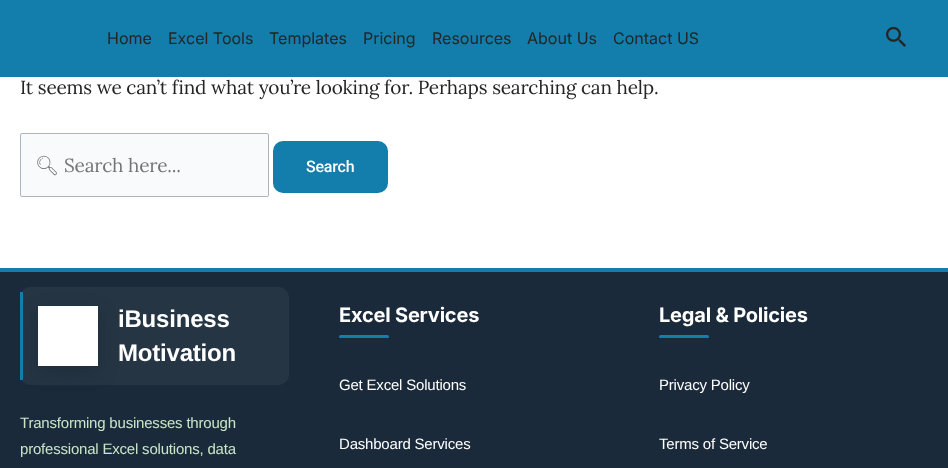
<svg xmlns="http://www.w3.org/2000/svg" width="948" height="468">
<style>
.a{font:16px Inter;fill:#252525}
.b{font:19px Lora;letter-spacing:-0.2px;fill:#252525}
.c{font:19px Noto Emoji;letter-spacing:-0.2px;fill:#757575}
.d{font:19px Lora;letter-spacing:-0.2px;fill:#757575}
.e{font:500 16px Roboto;letter-spacing:-0.2px;fill:#fff}
.f{font:bold 24px Liberation Sans;letter-spacing:-0.2px;fill:#fff}
.g{font:15px Liberation Sans;letter-spacing:-0.2px;fill:#c8e6c8}
.h{font:bold 20px Inter;letter-spacing:-0.2px;fill:#fff}
.i{font:15px Liberation Sans;letter-spacing:-0.2px;fill:#fff}
</style>
<rect width="100%" height="100%" fill="#fff"/>
<path fill="#137dac" d="M0 0h948v77H0z"/>
<image href="1.png" x="886" y="26" width="20" height="21"/>
<rect fill="#f9fafb" stroke="#adb6be" x="20.5" y="133.5" width="248" height="63" rx="1.5"/>
<rect fill="#137dac" stroke="#137dac" stroke-width="3" x="274.5" y="142.5" width="112" height="49" rx="8.5"/>
<path fill="#1a2a3a" d="M0 272h948v196H0z"/>
<path fill="#137dac" d="M0 268h948v4H0z"/>
<rect fill="#253544" x="20" y="287" width="269" height="98" rx="10"/>
<path fill="#137dac" d="M20 292h3v88H20z"/>
<path fill="#00000026" filter="blur(10px)" d="M38 312h60v60H38z"/>
<path fill="#fff" d="M38 306h60v60H38z"/>
<rect fill="#137dac" x="339" y="335" width="50" height="3" rx="1.5"/>
<rect fill="#137dac" x="659" y="335" width="50" height="3" rx="1.5"/>
<text class="a" x="107" y="44">Home</text>
<text class="a" x="168" y="44">Excel Tools</text>
<text class="a" x="269" y="44">Templates</text>
<text class="a" x="363" y="44">Pricing</text>
<text class="a" x="432" y="44">Resources</text>
<text class="a" x="527" y="44">About Us</text>
<text class="a" x="613" y="44">Contact US</text>
<text class="b" x="20" y="94">It seems we can’t find what you’re looking for. Perhaps searching can help.</text>
<text class="c" x="35" y="172">🔍︎</text>
<text class="d" x="64" y="172">Search here...</text>
<text class="e" x="306" y="172">Search</text>
<text class="f" x="118" y="327">iBusiness</text>
<text class="f" x="118" y="361">Motivation</text>
<text class="g" x="20" y="428">Transforming businesses through</text>
<text class="g" x="20" y="454">professional Excel solutions, data</text>
<text class="h" x="339" y="322">Excel Services</text>
<text class="i" x="339" y="390">Get Excel Solutions</text>
<text class="i" x="339" y="449">Dashboard Services</text>
<text class="h" x="659" y="322">Legal &amp; Policies</text>
<text class="i" x="659" y="390">Privacy Policy</text>
<text class="i" x="659" y="449">Terms of Service</text>
</svg>
